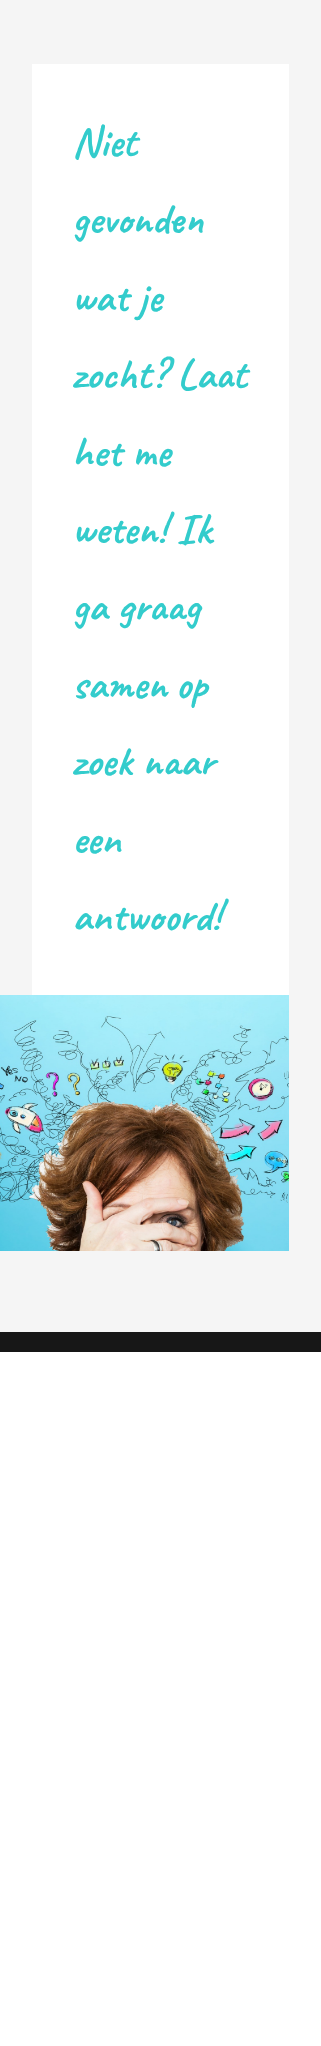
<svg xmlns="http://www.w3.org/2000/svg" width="321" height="2046">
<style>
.a{font:bold 43px Caveat;fill:#3cc}
</style>
<rect width="100%" height="100%" fill="#fff"/>
<path fill="#f5f5f5" d="M0 0h321v1332H0z"/>
<path fill="#fff" d="M32 64h257v931H32z"/>
<image href="1.png" x="0" y="995" width="289" height="256"/>
<path fill="#171717" d="M0 1332h321v20H0z"/>
<text class="a" x="72" y="156">Niet</text>
<text class="a" x="72" y="233">gevonden</text>
<text class="a" x="72" y="311">wat je</text>
<text class="a" x="72" y="388">zocht? Laat</text>
<text class="a" x="72" y="466">het me</text>
<text class="a" x="72" y="543">weten! Ik</text>
<text class="a" x="72" y="620">ga graag</text>
<text class="a" x="72" y="698" word-spacing="-2">samen op</text>
<text class="a" x="72" y="775">zoek naar</text>
<text class="a" x="72" y="853">een</text>
<text class="a" x="72" y="930">antwoord!</text>
</svg>
